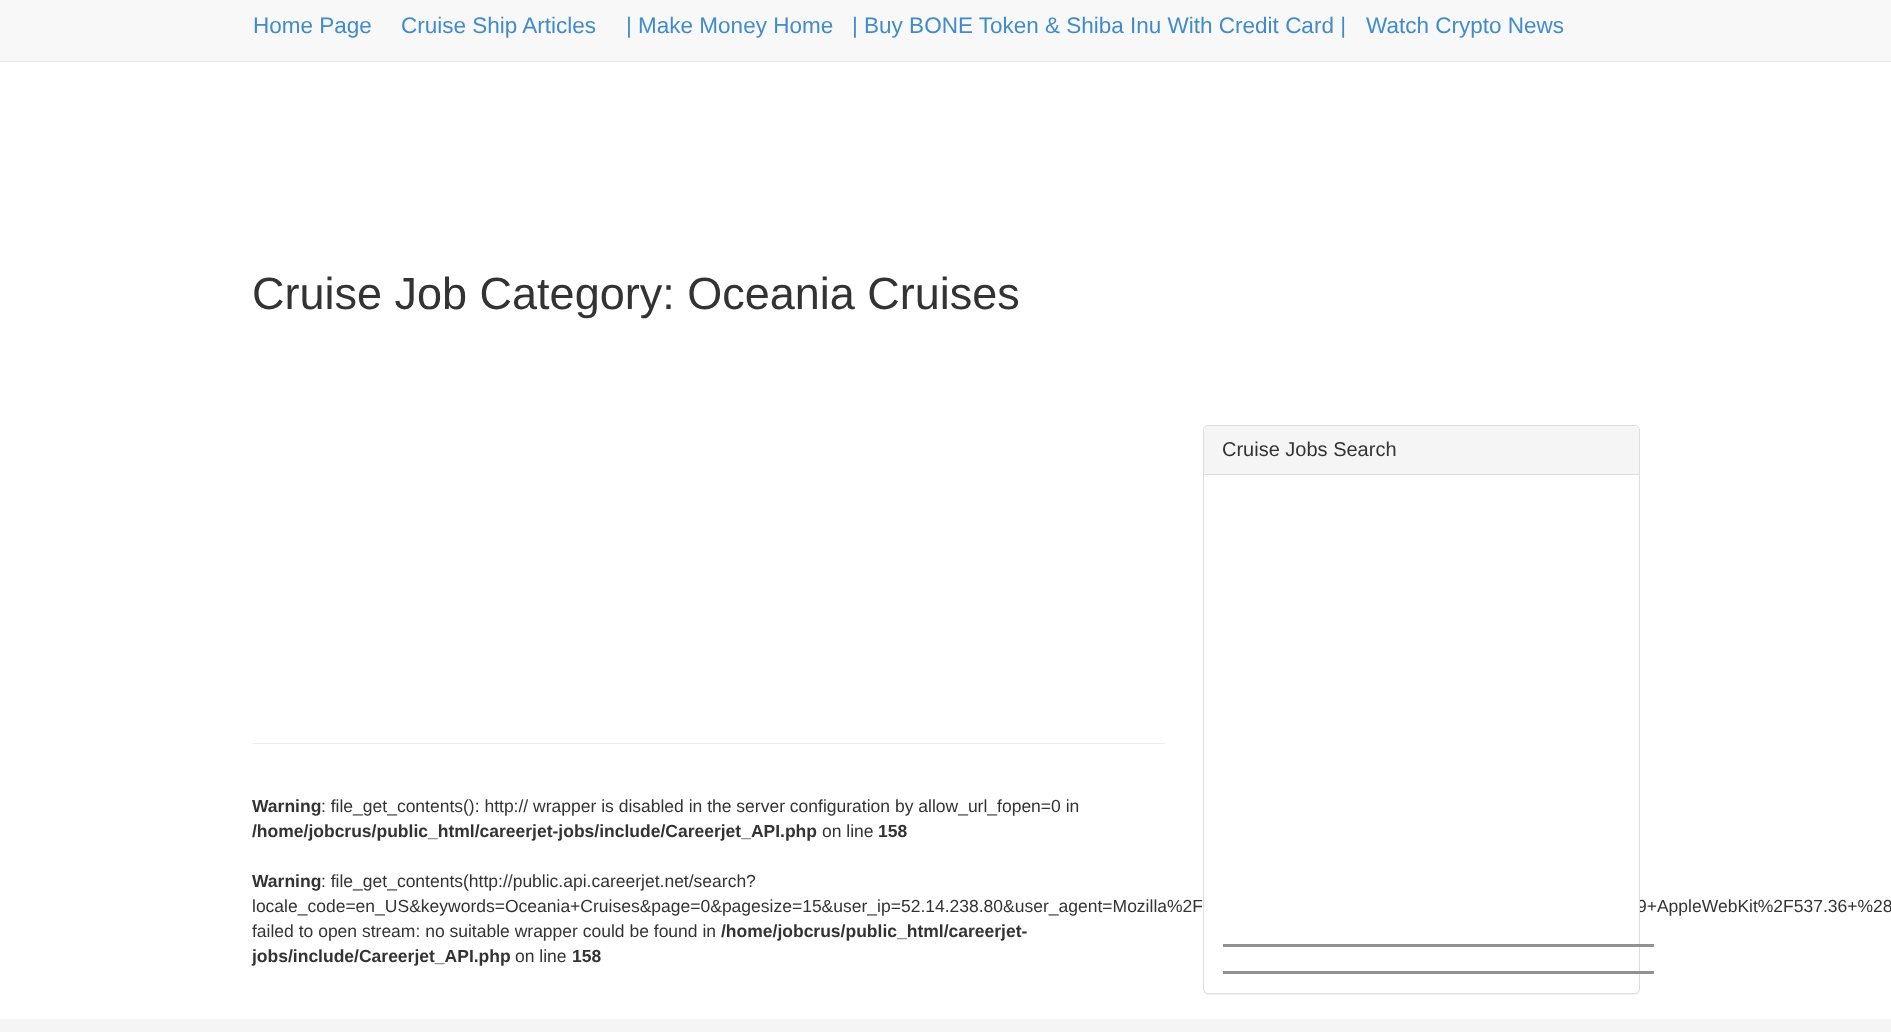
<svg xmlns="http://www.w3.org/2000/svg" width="1891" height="1032">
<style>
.a{font:22.5px Liberation Sans;fill:#428bca}
.b{font:45px Liberation Sans;fill:#333}
.c{font:bold 17.5px Liberation Sans;fill:#333}
.d{font:17.5px Liberation Sans;fill:#333}
.e{font:20px Liberation Sans;fill:#333}
</style>
<rect width="100%" height="100%" fill="#fff"/>
<path fill="#f8f8f8" d="M0 0h1891v61H0z"/>
<path fill="#e7e7e7" d="M0 61h1891v1H0z"/>
<path fill="#eee" d="M253 743h912v1H253z"/>
<rect fill="#0000000d" filter="blur(0.5px)" x="1203" y="426" width="437" height="569" rx="5"/>
<path fill="#f5f5f5" d="M0 1019h1891v13H0z"/>
<text class="a" x="253" y="33">Home Page</text>
<text class="a" x="401" y="33">Cruise Ship Articles</text>
<text class="a" x="626" y="33">| Make Money Home</text>
<text class="a" x="852" y="33">| Buy BONE Token &amp; Shiba Inu With Credit Card |</text>
<text class="a" x="1366" y="33">Watch Crypto News</text>
<text class="b" x="252" y="309">Cruise Job Category: Oceania Cruises</text>
<text class="c" x="252" y="812">Warning</text>
<text class="d" x="321" y="812">: file_get_contents(): http:// wrapper is disabled in the server configuration by allow_url_fopen=0 in</text>
<text class="c" x="252" y="837">/home/jobcrus/public_html/careerjet-jobs/include/Careerjet_API.php</text>
<text class="d" x="822" y="837">on line</text>
<text class="c" x="878" y="837">158</text>
<text class="c" x="252" y="887">Warning</text>
<text class="d" x="321" y="887">: file_get_contents(http://public.api.careerjet.net/search?</text>
<text class="d" x="252" y="912">locale_code=en_US&amp;keywords=Oceania+Cruises&amp;page=0&amp;pagesize=15&amp;user_ip=52.14.238.80&amp;user_agent=Mozilla%2F</text>
<text class="d" x="1637" y="912">9+AppleWebKit%2F537.36+%28</text>
<text class="d" x="252" y="937">failed to open stream: no suitable wrapper could be found in</text>
<text class="c" x="721" y="937">/home/jobcrus/public_html/careerjet-</text>
<text class="c" x="252" y="962">jobs/include/Careerjet_API.php</text>
<text class="d" x="515" y="962">on line</text>
<text class="c" x="572" y="962">158</text>
<rect fill="#fff" stroke="#ddd" x="1203.5" y="425.5" width="436" height="568" rx="4.5"/>
<path fill="#f5f5f5" d="M1208 426h427c2 0 4 2 4 4v45h-435v-45c0-2 2-4 4-4z"/>
<path fill="#ddd" d="M1204 474h435v1H1204z"/>
<text class="e" x="1222" y="456">Cruise Jobs Search</text>
<path fill="#919294" d="M1223 944h431v3H1223z"/>
<path fill="#919294" d="M1223 971h431v3H1223z"/>
</svg>
